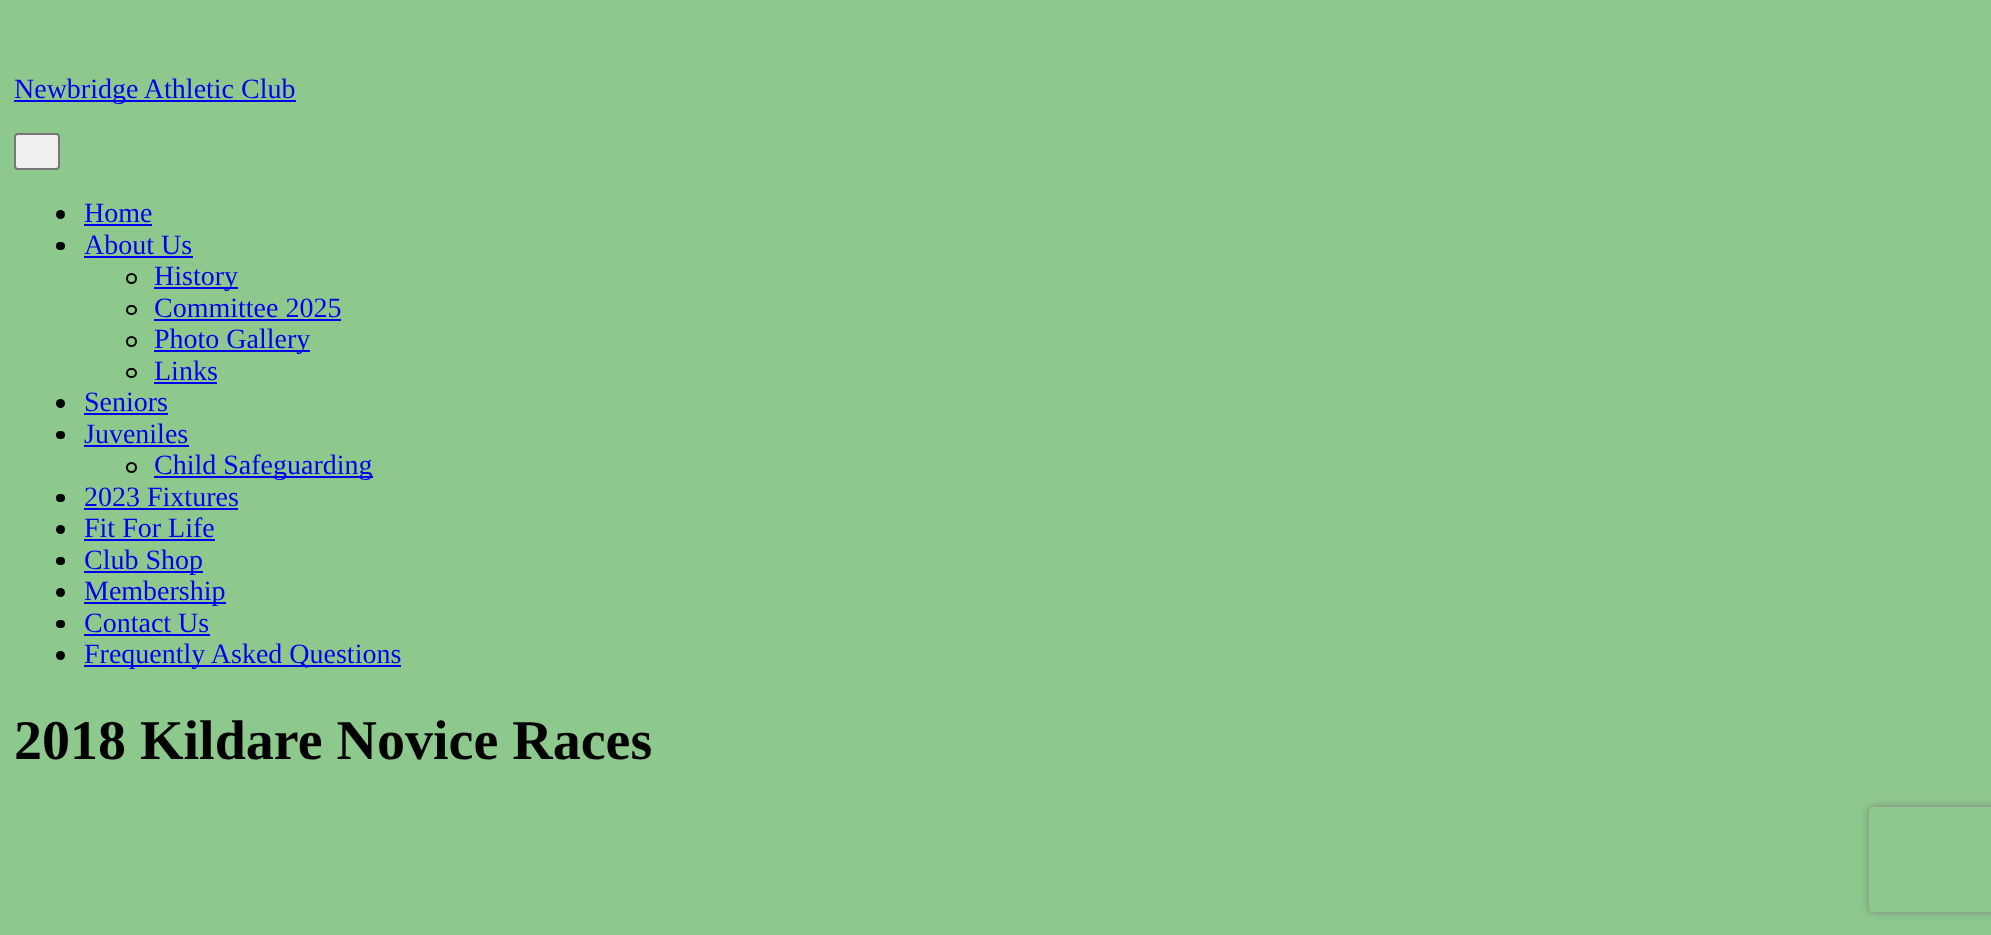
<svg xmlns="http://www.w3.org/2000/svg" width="1991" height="935">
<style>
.a{font:28px Liberation Serif;fill:#00e}
.b{font:bold 56px Liberation Serif;fill:#000}
</style>
<defs>
<clipPath id="clip1"><path d="M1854 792h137v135h-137zm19 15h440c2 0 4 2 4 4v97c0 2-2 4-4 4h-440c-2 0-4-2-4-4v-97c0-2 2-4 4-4z" clip-rule="evenodd"/></clipPath>
</defs>
<rect width="100%" height="100%" fill="#8dc98d"/>
<path fill="#00e" d="M14 100h282v2H14z"/>
<rect fill="#efefef" stroke="#767676" stroke-width="2" x="15" y="134" width="44" height="35" rx="3"/>
<circle fill="#000" cx="60.5" cy="214.5" r="4.5"/>
<path fill="#00e" d="M84 224h68v2H84z"/>
<rect fill="#000" x="56" y="242" width="9" height="8" rx="4"/>
<path fill="#00e" d="M84 256h109v2H84z"/>
<circle fill="none" stroke="#000" stroke-width="2" cx="131.5" cy="278.5" r="4.5"/>
<path fill="#00e" d="M154 287h84v2H154z"/>
<rect fill="none" stroke="#000" stroke-width="2" x="127" y="306" width="9" height="8" rx="4"/>
<path fill="#00e" d="M154 319h187v2H154z"/>
<circle fill="none" stroke="#000" stroke-width="2" cx="131.5" cy="341.5" r="4.5"/>
<path fill="#00e" d="M154 350h156v2H154z"/>
<rect fill="none" stroke="#000" stroke-width="2" x="127" y="369" width="9" height="8" rx="4"/>
<path fill="#00e" d="M154 382h63v2H154z"/>
<circle fill="#000" cx="60.5" cy="403.5" r="4.5"/>
<path fill="#00e" d="M84 413h84v2H84z"/>
<rect fill="#000" x="56" y="431" width="9" height="8" rx="4"/>
<path fill="#00e" d="M84 445h105v2H84z"/>
<circle fill="none" stroke="#000" stroke-width="2" cx="131.5" cy="467.5" r="4.5"/>
<path fill="#00e" d="M154 476h219v2H154z"/>
<rect fill="#000" x="56" y="494" width="9" height="8" rx="4"/>
<path fill="#00e" d="M84 508h154v2H84z"/>
<circle fill="#000" cx="60.5" cy="529.5" r="4.5"/>
<path fill="#00e" d="M84 539h131v2H84z"/>
<rect fill="#000" x="56" y="557" width="9" height="8" rx="4"/>
<path fill="#00e" d="M84 571h119v2H84z"/>
<circle fill="#000" cx="60.5" cy="592.5" r="4.5"/>
<path fill="#00e" d="M84 602h142v2H84z"/>
<rect fill="#000" x="56" y="620" width="9" height="8" rx="4"/>
<path fill="#00e" d="M84 634h126v2H84z"/>
<circle fill="#000" cx="60.5" cy="655.5" r="4.5"/>
<path fill="#00e" d="M84 665h317v2H84z"/>
<g clip-path="url(#clip1)">
<rect fill="#808080" filter="blur(4.5px)" x="1869" y="807" width="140" height="105" rx="4"/>
</g>
<text class="a" x="14" y="98">Newbridge Athletic Club</text>
<text class="a" x="84" y="222">Home</text>
<text class="a" x="84" y="254">About Us</text>
<text class="a" x="154" y="285">History</text>
<text class="a" x="154" y="317">Committee 2025</text>
<text class="a" x="154" y="348">Photo Gallery</text>
<text class="a" x="154" y="380">Links</text>
<text class="a" x="84" y="411">Seniors</text>
<text class="a" x="84" y="443">Juveniles</text>
<text class="a" x="154" y="474">Child Safeguarding</text>
<text class="a" x="84" y="506">2023 Fixtures</text>
<text class="a" x="84" y="537">Fit For Life</text>
<text class="a" x="84" y="569">Club Shop</text>
<text class="a" x="84" y="600">Membership</text>
<text class="a" x="84" y="632">Contact Us</text>
<text class="a" x="84" y="663">Frequently Asked Questions</text>
<text class="b" x="14" y="759">2018 Kildare Novice Races</text>
</svg>
